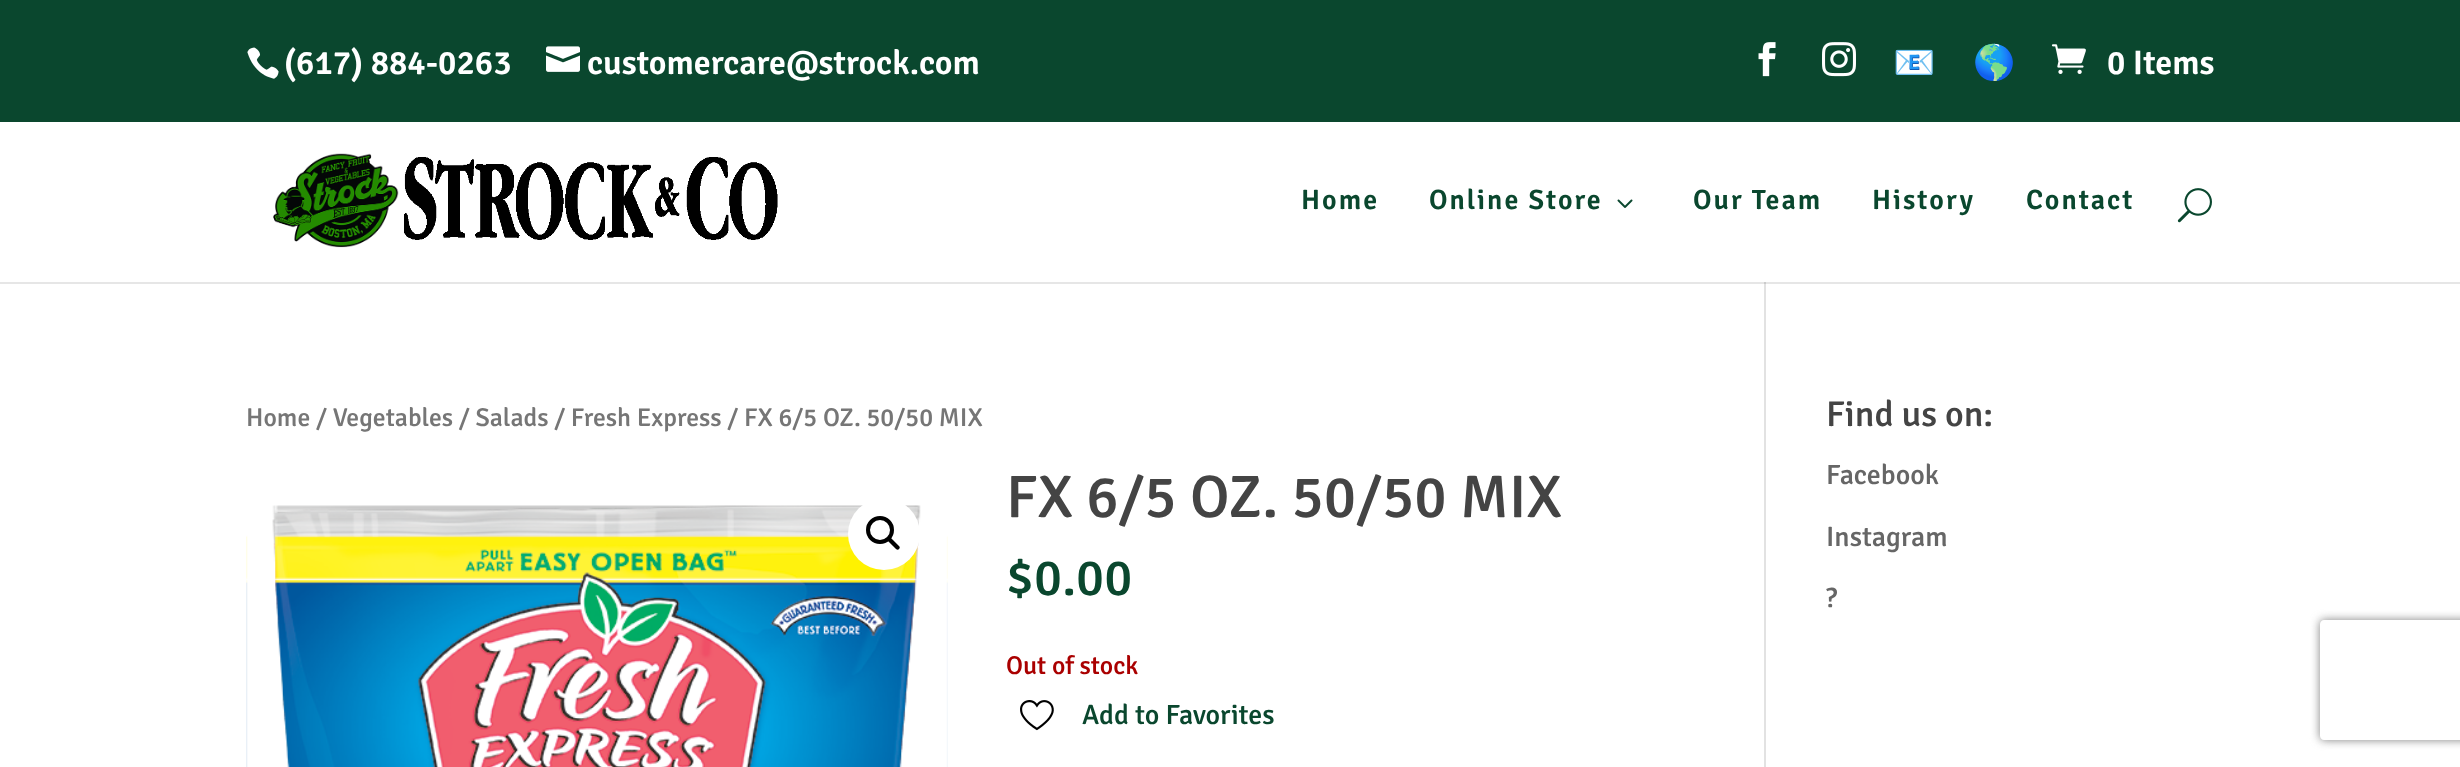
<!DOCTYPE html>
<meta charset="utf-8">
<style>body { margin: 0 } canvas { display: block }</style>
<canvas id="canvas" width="2460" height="767"></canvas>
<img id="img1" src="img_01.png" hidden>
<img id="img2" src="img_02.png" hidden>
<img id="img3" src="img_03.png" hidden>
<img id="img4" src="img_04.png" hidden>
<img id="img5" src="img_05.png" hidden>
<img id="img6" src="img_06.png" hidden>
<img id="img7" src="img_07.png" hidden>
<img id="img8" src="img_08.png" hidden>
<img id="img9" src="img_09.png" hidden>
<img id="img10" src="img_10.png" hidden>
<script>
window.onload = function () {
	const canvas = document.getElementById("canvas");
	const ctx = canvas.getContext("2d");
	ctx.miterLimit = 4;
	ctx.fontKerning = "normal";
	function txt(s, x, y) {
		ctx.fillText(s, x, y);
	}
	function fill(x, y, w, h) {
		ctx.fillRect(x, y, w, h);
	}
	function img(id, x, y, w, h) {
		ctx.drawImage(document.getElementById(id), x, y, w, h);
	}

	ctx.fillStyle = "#FFFFFF";
	fill(0, 0, 2460, 767);
	ctx.fillStyle = "#E6E6E6";
	fill(0, 282, 2460, 2);
	ctx.fillStyle = "#0A472E";
	fill(0, 0, 2460, 122);
	img("img1", 247, 47, 32, 32);
	img("img2", 546, 46, 34, 26);
	img("img3", 1758, 42, 18, 35);
	img("img4", 1822, 42, 34, 35);
	img("img5", 2051, 44, 35, 30);
	ctx.fillStyle = "#E2E2E2";
	fill(1764, 280, 2, 487);
	ctx.fillStyle = "#FFFFFF";
	fill(1764, 280, 2, 2);
	img("img6", 273, 153, 505, 95);
	img("img7", 1617, 199, 16, 9);
	img("img8", 2177, 188, 35, 35);
	ctx.fillStyle = "#CBCBCB";
	fill(1764, 282, 2, 2);
	img("img9", 246, 505, 702, 262);
	ctx.fillStyle = "#FFFFFF";
	ctx.beginPath();
	ctx.arc(884, 534, 36, 0, Math.PI * 2);
	ctx.fill();
	ctx.beginPath();
	ctx.arc(880, 530, 12, 0, Math.PI * 2);
	ctx.strokeStyle = "#000000";
	ctx.lineWidth = 4;
	ctx.stroke();
	ctx.fillStyle = "#000000";
	ctx.beginPath();
	ctx.moveTo(887.5, 537.5);
	ctx.bezierCurveTo(888.5, 537, 890, 537, 890.5, 537.5);
	ctx.lineTo(899, 546);
	ctx.bezierCurveTo(900, 547, 900, 548, 899, 549);
	ctx.bezierCurveTo(898.5, 550, 897, 550, 896, 549);
	ctx.lineTo(887.5, 540.5);
	ctx.bezierCurveTo(887, 539.5, 887, 538.5, 887.5, 537.5);
	ctx.closePath();
	ctx.fill();
	img("img10", 1020, 700, 34, 31);
	ctx.save();
	ctx.beginPath();
	ctx.moveTo(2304, 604);
	ctx.lineTo(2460, 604);
	ctx.lineTo(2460, 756);
	ctx.lineTo(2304, 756);
	ctx.closePath();
	ctx.moveTo(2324, 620);
	ctx.lineTo(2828, 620);
	ctx.bezierCurveTo(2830, 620, 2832, 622, 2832, 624);
	ctx.lineTo(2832, 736);
	ctx.bezierCurveTo(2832, 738, 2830, 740, 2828, 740);
	ctx.lineTo(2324, 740);
	ctx.bezierCurveTo(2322, 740, 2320, 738, 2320, 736);
	ctx.lineTo(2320, 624);
	ctx.bezierCurveTo(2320, 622, 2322, 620, 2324, 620);
	ctx.closePath();
	ctx.clip("evenodd");
	ctx.fillStyle = "#808080";
	ctx.filter = "blur(5px)";
	ctx.beginPath();
	ctx.roundRect(2320, 620, 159, 120, 4);
	ctx.fill();
	ctx.filter = "none";
	ctx.restore();
	ctx.font = "600 34px Signika";
	ctx.fillStyle = "#FFFFFF";
	txt("(617) 884-0263", 284, 74);
	txt("customercare@strock.com", 587, 74);
	ctx.font = "bold 34px Noto Color Emoji";
	txt("📧", 1893, 74);
	txt("🌎", 1973, 74);
	ctx.font = "600 34px Signika";
	txt("0 Items", 2107, 74);
	ctx.letterSpacing = "2px";
	ctx.font = "600 28px Signika";
	ctx.fillStyle = "#0A472E";
	txt("Home", 1301, 209);
	txt("Online Store", 1429, 209);
	txt("Our Team", 1693, 209);
	txt("History", 1872, 209);
	txt("Contact", 2026, 209);
	ctx.letterSpacing = "0px";
	ctx.font = "500 25.75px Signika";
	ctx.fillStyle = "#767676";
	txt("Home / Vegetables / Salads / Fresh Express / FX 6/5 OZ. 50/50 MIX", 246, 426);
	ctx.font = "500 60px Signika";
	ctx.fillStyle = "#444444";
	txt("FX 6/5 OZ. 50/50 MIX", 1006, 517);
	ctx.font = "500 52px Signika";
	ctx.fillStyle = "#0A472E";
	txt("$0.00", 1006, 595);
	ctx.font = "500 25.75px Signika";
	ctx.fillStyle = "#AA0000";
	txt("Out of stock", 1006, 674);
	ctx.font = "500 28px Signika";
	ctx.fillStyle = "#0A472E";
	txt("Add to Favorites", 1082, 724);
	ctx.font = "500 36px Signika";
	ctx.fillStyle = "#444444";
	txt("Find us on:", 1826, 426);
	ctx.font = "500 28px Signika";
	ctx.fillStyle = "#666666";
	txt("Facebook", 1826, 484);
	txt("Instagram", 1826, 546);
	txt("?", 1826, 607);
};
</script>
